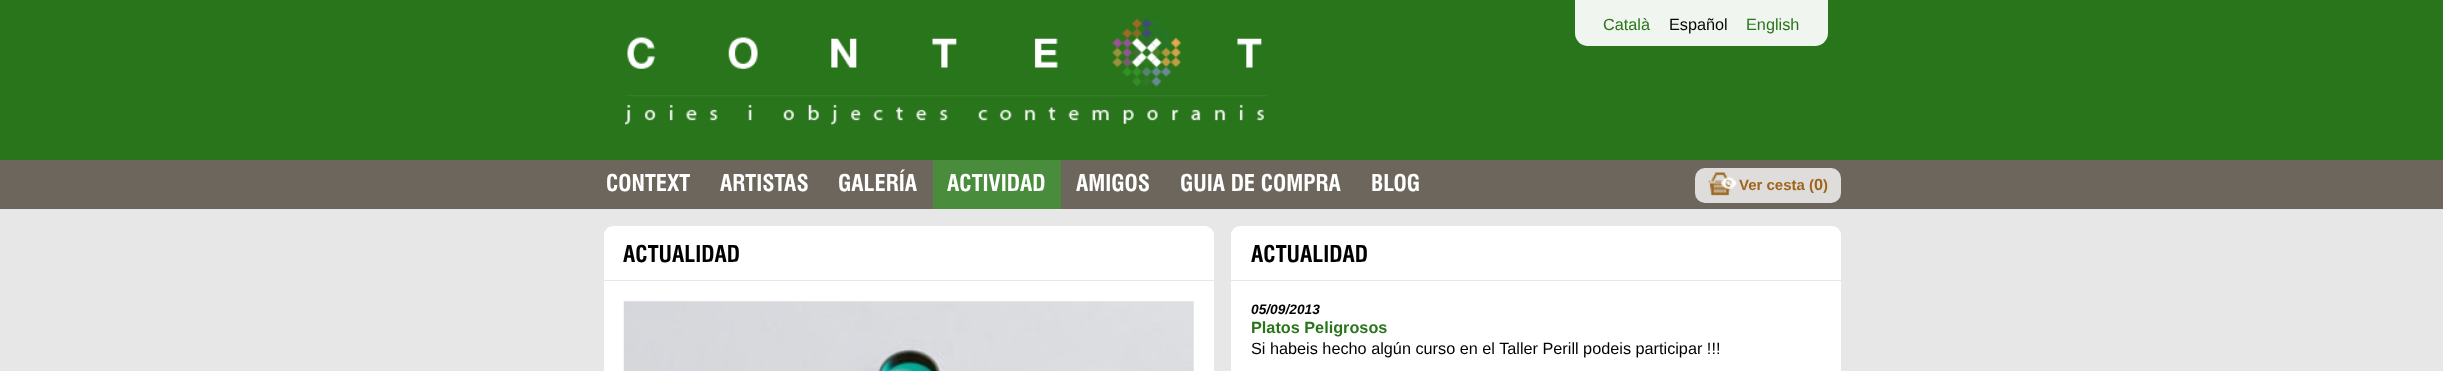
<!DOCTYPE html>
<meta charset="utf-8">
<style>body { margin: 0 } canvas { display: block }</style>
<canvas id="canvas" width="2443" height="371"></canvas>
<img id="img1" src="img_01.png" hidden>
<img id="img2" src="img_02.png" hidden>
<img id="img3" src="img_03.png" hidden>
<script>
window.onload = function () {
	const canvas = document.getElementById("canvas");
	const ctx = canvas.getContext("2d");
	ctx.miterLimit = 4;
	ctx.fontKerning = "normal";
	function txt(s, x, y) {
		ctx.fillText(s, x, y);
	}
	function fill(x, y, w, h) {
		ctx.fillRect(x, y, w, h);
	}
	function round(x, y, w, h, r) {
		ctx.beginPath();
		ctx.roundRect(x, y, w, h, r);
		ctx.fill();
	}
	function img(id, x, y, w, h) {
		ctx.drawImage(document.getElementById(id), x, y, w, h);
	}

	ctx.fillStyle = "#E7E7E7";
	fill(0, 0, 2443, 371);
	ctx.fillStyle = "#29751B";
	fill(0, 0, 2443, 160);
	img("img1", 625, 18, 643, 107);
	ctx.fillStyle = "#F0F5EF";
	ctx.beginPath();
	ctx.roundRect(1575, 0, 253, 46, [0, 0, 13, 13]);
	ctx.fill();
	ctx.fillStyle = "#6D665C";
	fill(0, 160, 2443, 49);
	ctx.fillStyle = "#498C3C";
	fill(933, 160, 128, 49);
	ctx.fillStyle = "#DFDDDB";
	round(1695, 168, 146, 35, 10);
	img("img2", 1708, 172, 29, 24);
	ctx.fillStyle = "#FFFFFF";
	ctx.beginPath();
	ctx.roundRect(604, 226, 610, 54, [9, 9, 0, 0]);
	ctx.fill();
	fill(604, 281, 610, 90);
	img("img3", 623, 301, 571, 70);
	ctx.beginPath();
	ctx.roundRect(1231, 226, 610, 54, [9, 9, 0, 0]);
	ctx.fill();
	fill(1231, 281, 610, 90);
	ctx.font = "16.25px Liberation Sans";
	ctx.fillStyle = "#29751B";
	txt("Català", 1603, 30);
	ctx.fillStyle = "#030802";
	txt("Español", 1669, 30);
	ctx.fillStyle = "#29751B";
	txt("English", 1746, 30);
	ctx.font = "bold 22.5px 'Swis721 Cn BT'";
	ctx.fillStyle = "#FFFFFF";
	txt("CONTEXT", 606, 191);
	txt("ARTISTAS", 720, 191);
	txt("GALERÍA", 838, 191);
	txt("ACTIVIDAD", 947, 191);
	txt("AMIGOS", 1076, 191);
	txt("GUIA DE COMPRA", 1180, 191);
	txt("BLOG", 1371, 191);
	ctx.font = "bold 15px Liberation Sans";
	ctx.fillStyle = "#9F651B";
	txt("Ver cesta (", 1739, 190);
	ctx.font = "bold 16.25px Liberation Sans";
	txt("0", 1814, 190);
	ctx.font = "bold 15px Liberation Sans";
	txt(")", 1823, 190);
	ctx.font = "bold 22.5px 'Swis721 Cn BT'";
	ctx.fillStyle = "#000000";
	txt("ACTUALIDAD", 623, 262);
	txt("ACTUALIDAD", 1251, 262);
	ctx.font = "italic bold 13.75px Liberation Sans";
	txt("05/09/2013", 1251, 314);
	ctx.font = "bold 16.25px Liberation Sans";
	ctx.fillStyle = "#29751B";
	txt("Platos Peligrosos", 1251, 333);
	ctx.font = "16.25px Liberation Sans";
	ctx.fillStyle = "#000000";
	txt("Si habeis hecho algún curso en el Taller Perill podeis participar !!!", 1251, 354);
};
</script>
